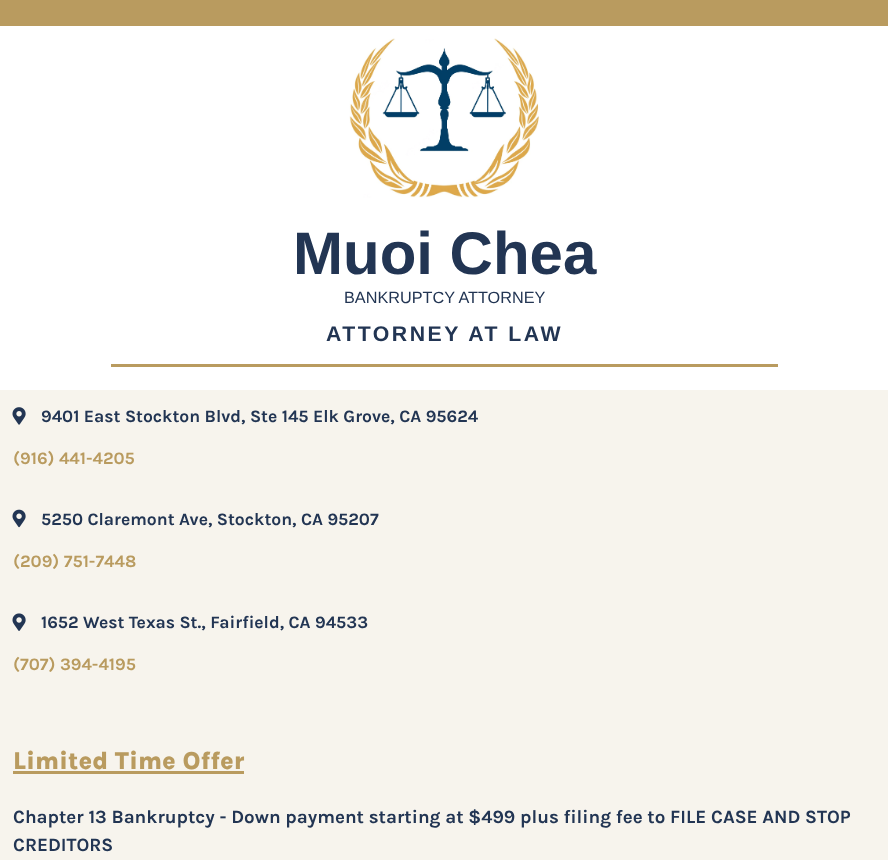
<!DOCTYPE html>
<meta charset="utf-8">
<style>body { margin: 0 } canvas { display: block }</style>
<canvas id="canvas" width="888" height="860"></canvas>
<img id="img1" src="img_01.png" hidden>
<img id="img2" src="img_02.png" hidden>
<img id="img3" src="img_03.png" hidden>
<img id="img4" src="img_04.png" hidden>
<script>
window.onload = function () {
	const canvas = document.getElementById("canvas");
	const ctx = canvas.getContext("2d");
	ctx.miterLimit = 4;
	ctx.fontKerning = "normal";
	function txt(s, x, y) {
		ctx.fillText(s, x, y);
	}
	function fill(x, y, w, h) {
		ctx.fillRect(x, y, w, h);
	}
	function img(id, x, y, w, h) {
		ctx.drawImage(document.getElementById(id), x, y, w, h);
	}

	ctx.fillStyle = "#FFFFFF";
	fill(0, 0, 888, 860);
	ctx.fillStyle = "#B99B5F";
	fill(0, 0, 888, 26);
	img("img1", 349, 38, 190, 160);
	fill(111, 364, 667, 3);
	ctx.fillStyle = "#F7F4ED";
	fill(0, 390, 888, 470);
	img("img2", 12, 407, 14, 18);
	img("img3", 12, 509, 14, 19);
	img("img4", 12, 613, 14, 18);
	ctx.fillStyle = "#B99B5F";
	fill(13, 771, 231, 3);
	ctx.font = "bold 60px Liberation Sans";
	ctx.fillStyle = "#223553";
	txt("Muoi Chea", 293, 274);
	ctx.font = "16.25px Liberation Sans";
	txt("BANKRUPTCY ATTORNEY", 344, 303);
	ctx.letterSpacing = "2.5px";
	ctx.font = "bold 21.25px Liberation Sans";
	txt("ATTORNEY AT LAW", 326, 341);
	ctx.letterSpacing = "0px";
	ctx.font = "bold 17.5px Karla";
	txt("9401 East Stockton Blvd, Ste 145 Elk Grove, CA 95624", 41, 422);
	ctx.fillStyle = "#B99B5F";
	txt("(916) 441-4205", 13, 464);
	ctx.fillStyle = "#223553";
	txt("5250 Claremont Ave, Stockton, CA 95207", 41, 525);
	ctx.fillStyle = "#B99B5F";
	txt("(209) 751-7448", 13, 567);
	ctx.fillStyle = "#223553";
	txt("1652 West Texas St., Fairfield, CA 94533", 41, 628);
	ctx.fillStyle = "#B99B5F";
	txt("(707) 394-4195", 13, 670);
	ctx.font = "800 25px Karla";
	txt("Limited Time Offer", 13, 769);
	ctx.font = "bold 18.75px Karla";
	ctx.fillStyle = "#223553";
	txt("Chapter 13 Bankruptcy - Down payment starting at $499 plus filing fee to FILE CASE AND STOP", 13, 823);
	txt("CREDITORS", 13, 851);
};
</script>
